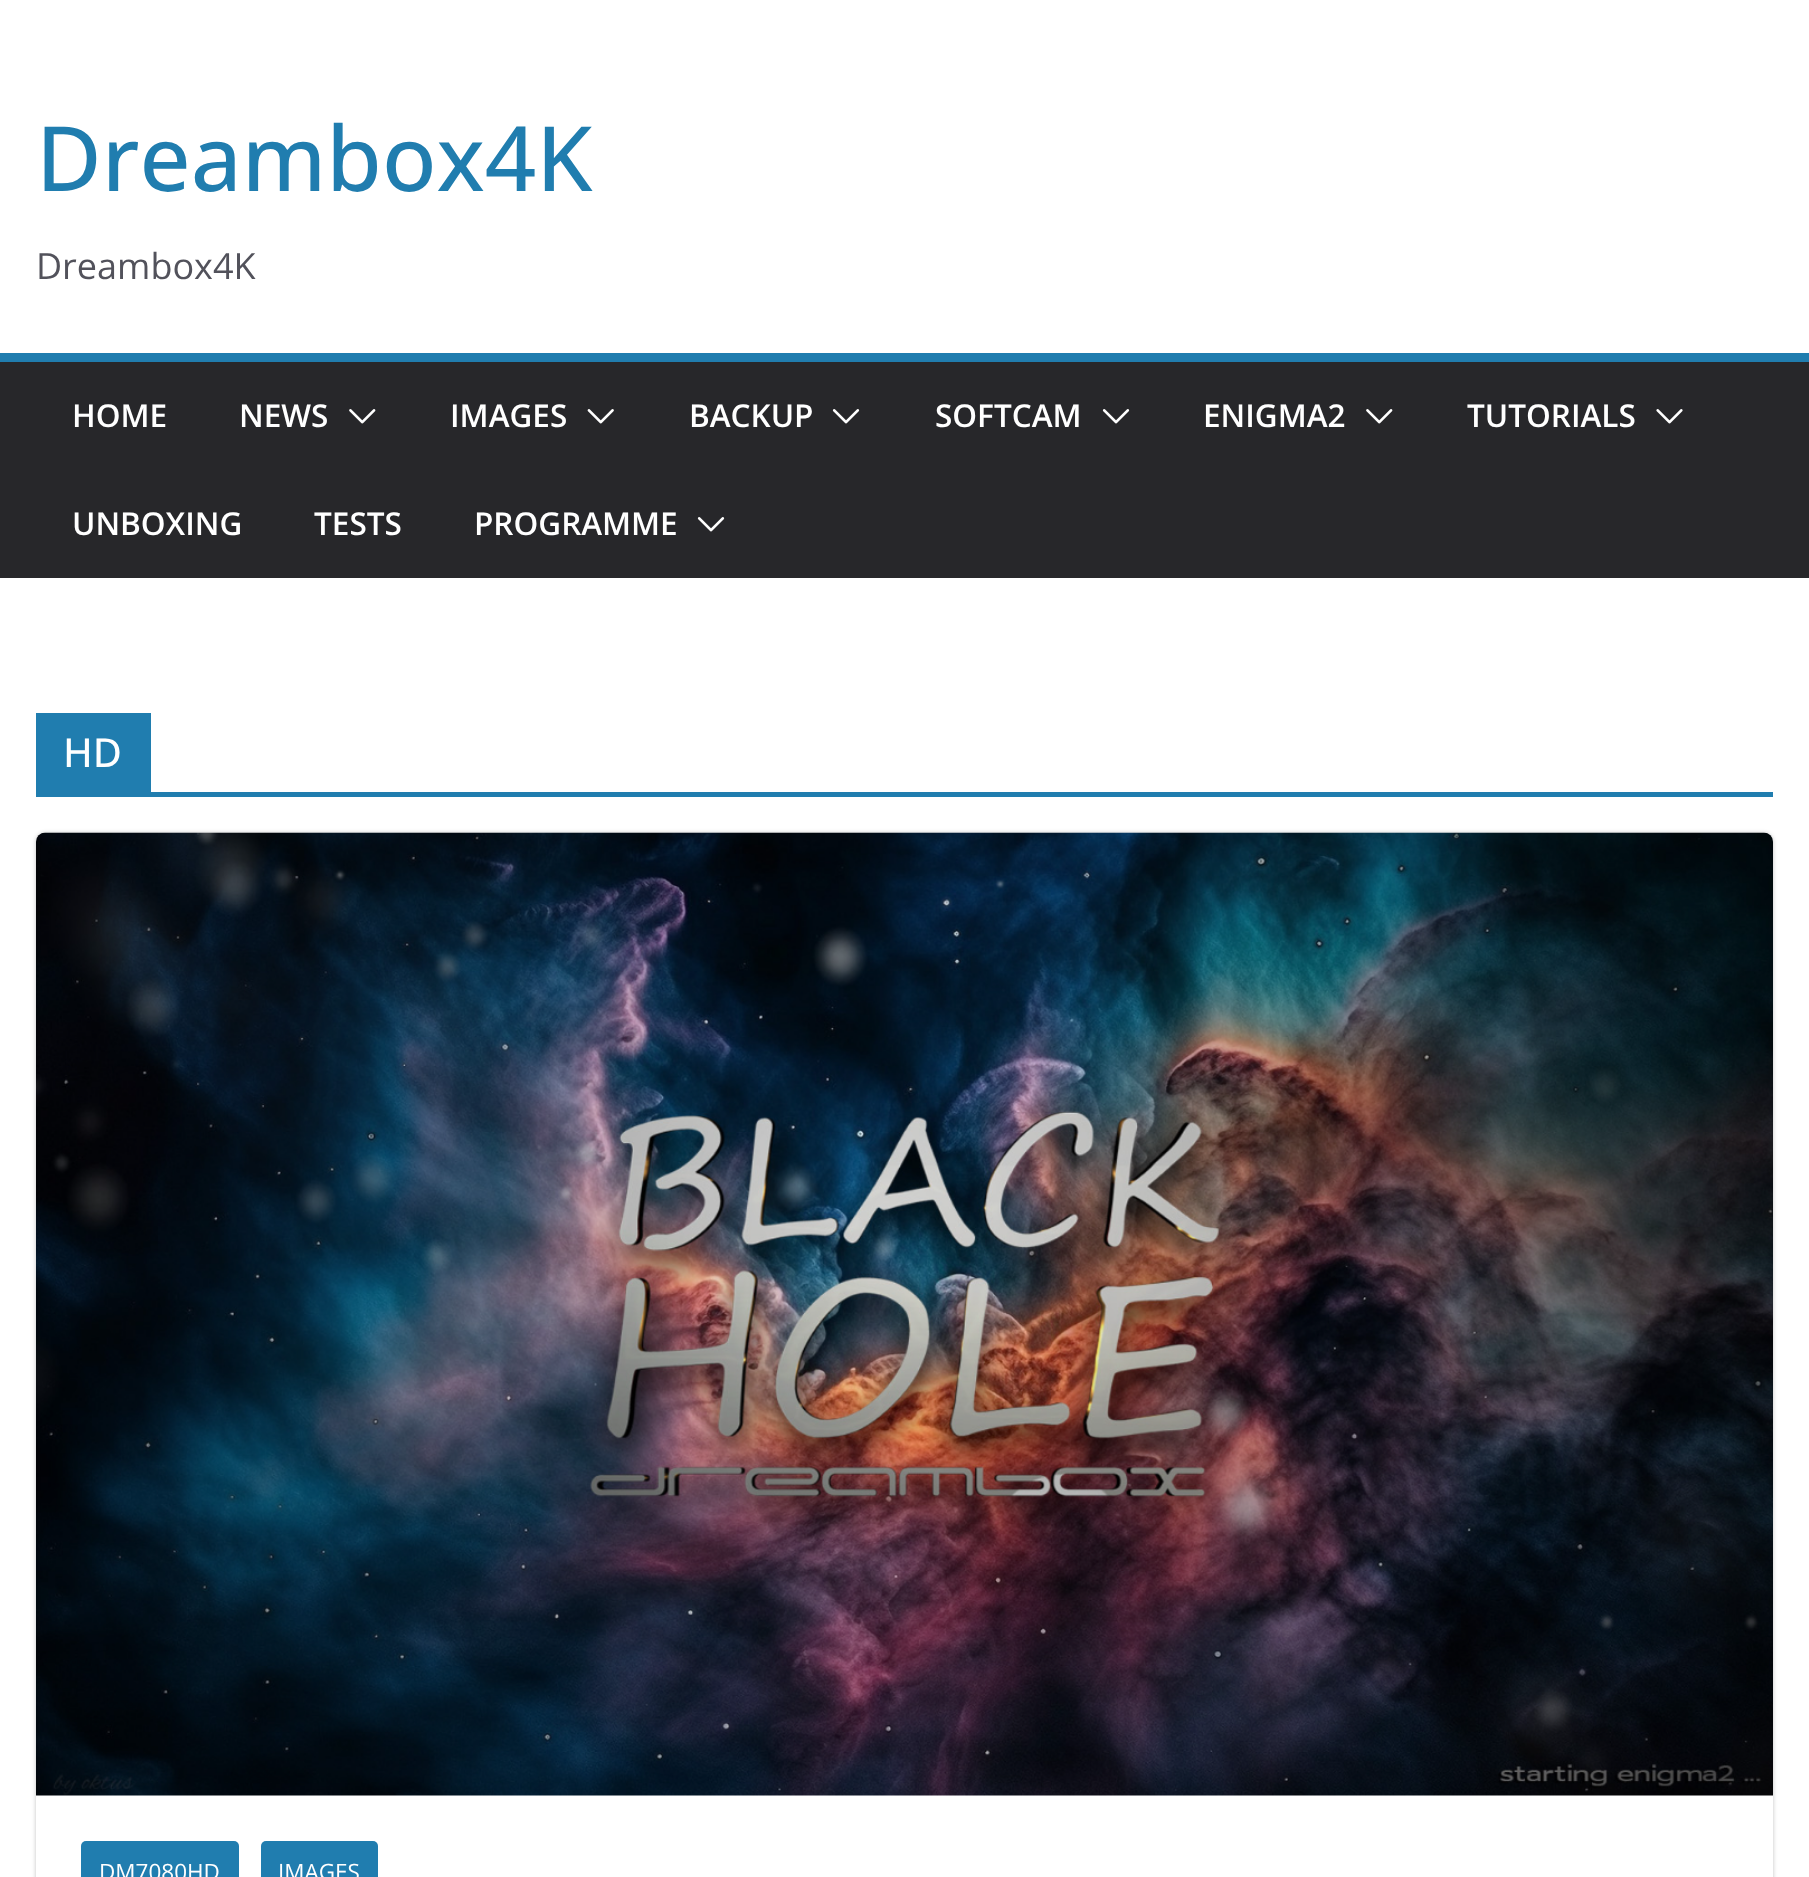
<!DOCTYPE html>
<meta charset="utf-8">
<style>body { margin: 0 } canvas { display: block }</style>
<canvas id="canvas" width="1809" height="1877"></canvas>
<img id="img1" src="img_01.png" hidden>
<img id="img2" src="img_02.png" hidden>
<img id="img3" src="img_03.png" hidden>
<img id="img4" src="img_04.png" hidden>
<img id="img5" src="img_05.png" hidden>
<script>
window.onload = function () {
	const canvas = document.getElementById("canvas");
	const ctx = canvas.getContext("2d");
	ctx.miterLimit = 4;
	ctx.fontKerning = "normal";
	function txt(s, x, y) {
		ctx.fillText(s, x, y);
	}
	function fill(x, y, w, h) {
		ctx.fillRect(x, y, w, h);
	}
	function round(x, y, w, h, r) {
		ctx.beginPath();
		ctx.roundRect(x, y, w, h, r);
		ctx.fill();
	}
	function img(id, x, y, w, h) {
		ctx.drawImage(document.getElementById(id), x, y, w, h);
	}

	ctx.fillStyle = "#FFFFFF";
	fill(0, 0, 1809, 1877);
	ctx.fillStyle = "#27272A";
	fill(0, 362, 1809, 216);
	ctx.fillStyle = "#207DAF";
	fill(0, 353, 1809, 9);
	img("img1", 349, 409, 27, 15);
	img("img2", 587, 409, 27, 15);
	img("img3", 832, 409, 28, 15);
	img("img3", 1102, 409, 28, 15);
	img("img1", 1366, 409, 27, 15);
	img("img4", 1656, 409, 27, 15);
	img("img3", 697, 517, 28, 15);
	fill(36, 792, 1737, 5);
	fill(36, 713, 115, 79);
	ctx.save();
	ctx.beginPath();
	ctx.moveTo(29, 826);
	ctx.lineTo(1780, 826);
	ctx.lineTo(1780, 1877);
	ctx.lineTo(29, 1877);
	ctx.closePath();
	ctx.moveTo(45, 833);
	ctx.lineTo(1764, 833);
	ctx.bezierCurveTo(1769, 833, 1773, 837, 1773, 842);
	ctx.lineTo(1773, 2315);
	ctx.bezierCurveTo(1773, 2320, 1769, 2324, 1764, 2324);
	ctx.lineTo(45, 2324);
	ctx.bezierCurveTo(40, 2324, 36, 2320, 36, 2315);
	ctx.lineTo(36, 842);
	ctx.bezierCurveTo(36, 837, 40, 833, 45, 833);
	ctx.closePath();
	ctx.clip("evenodd");
	ctx.fillStyle = "rgba(0, 0, 0, 0.24)";
	ctx.filter = "blur(2px)";
	ctx.beginPath();
	ctx.roundRect(36, 833, 1737, 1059, 9);
	ctx.fill();
	ctx.filter = "none";
	ctx.restore();
	img("img5", 36, 832, 1737, 964);
	round(81, 1841, 158, 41, 5);
	round(261, 1841, 117, 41, 5);
	ctx.font = "500 90px Open Sans";
	txt("Dreambox4K", 36, 191);
	ctx.font = "36px Open Sans";
	ctx.fillStyle = "#52525B";
	txt("Dreambox4K", 36, 279);
	ctx.font = "600 31.5px Open Sans";
	ctx.fillStyle = "#FFFFFF";
	txt("HOME", 72, 427);
	txt("NEWS", 239, 427);
	txt("IMAGES", 450, 427);
	txt("BACKUP", 689, 427);
	txt("SOFTCAM", 935, 427);
	txt("ENIGMA2", 1203, 427);
	txt("TUTORIALS", 1467, 427);
	txt("UNBOXING", 72, 535);
	txt("TESTS", 314, 535);
	txt("PROGRAMME", 474, 535);
	ctx.font = "500 40px Open Sans";
	txt("HD", 63, 767);
	ctx.font = "22.5px Open Sans";
	txt("DM7080HD", 99, 1880);
	txt("IMAGES", 278, 1880);
};
</script>
